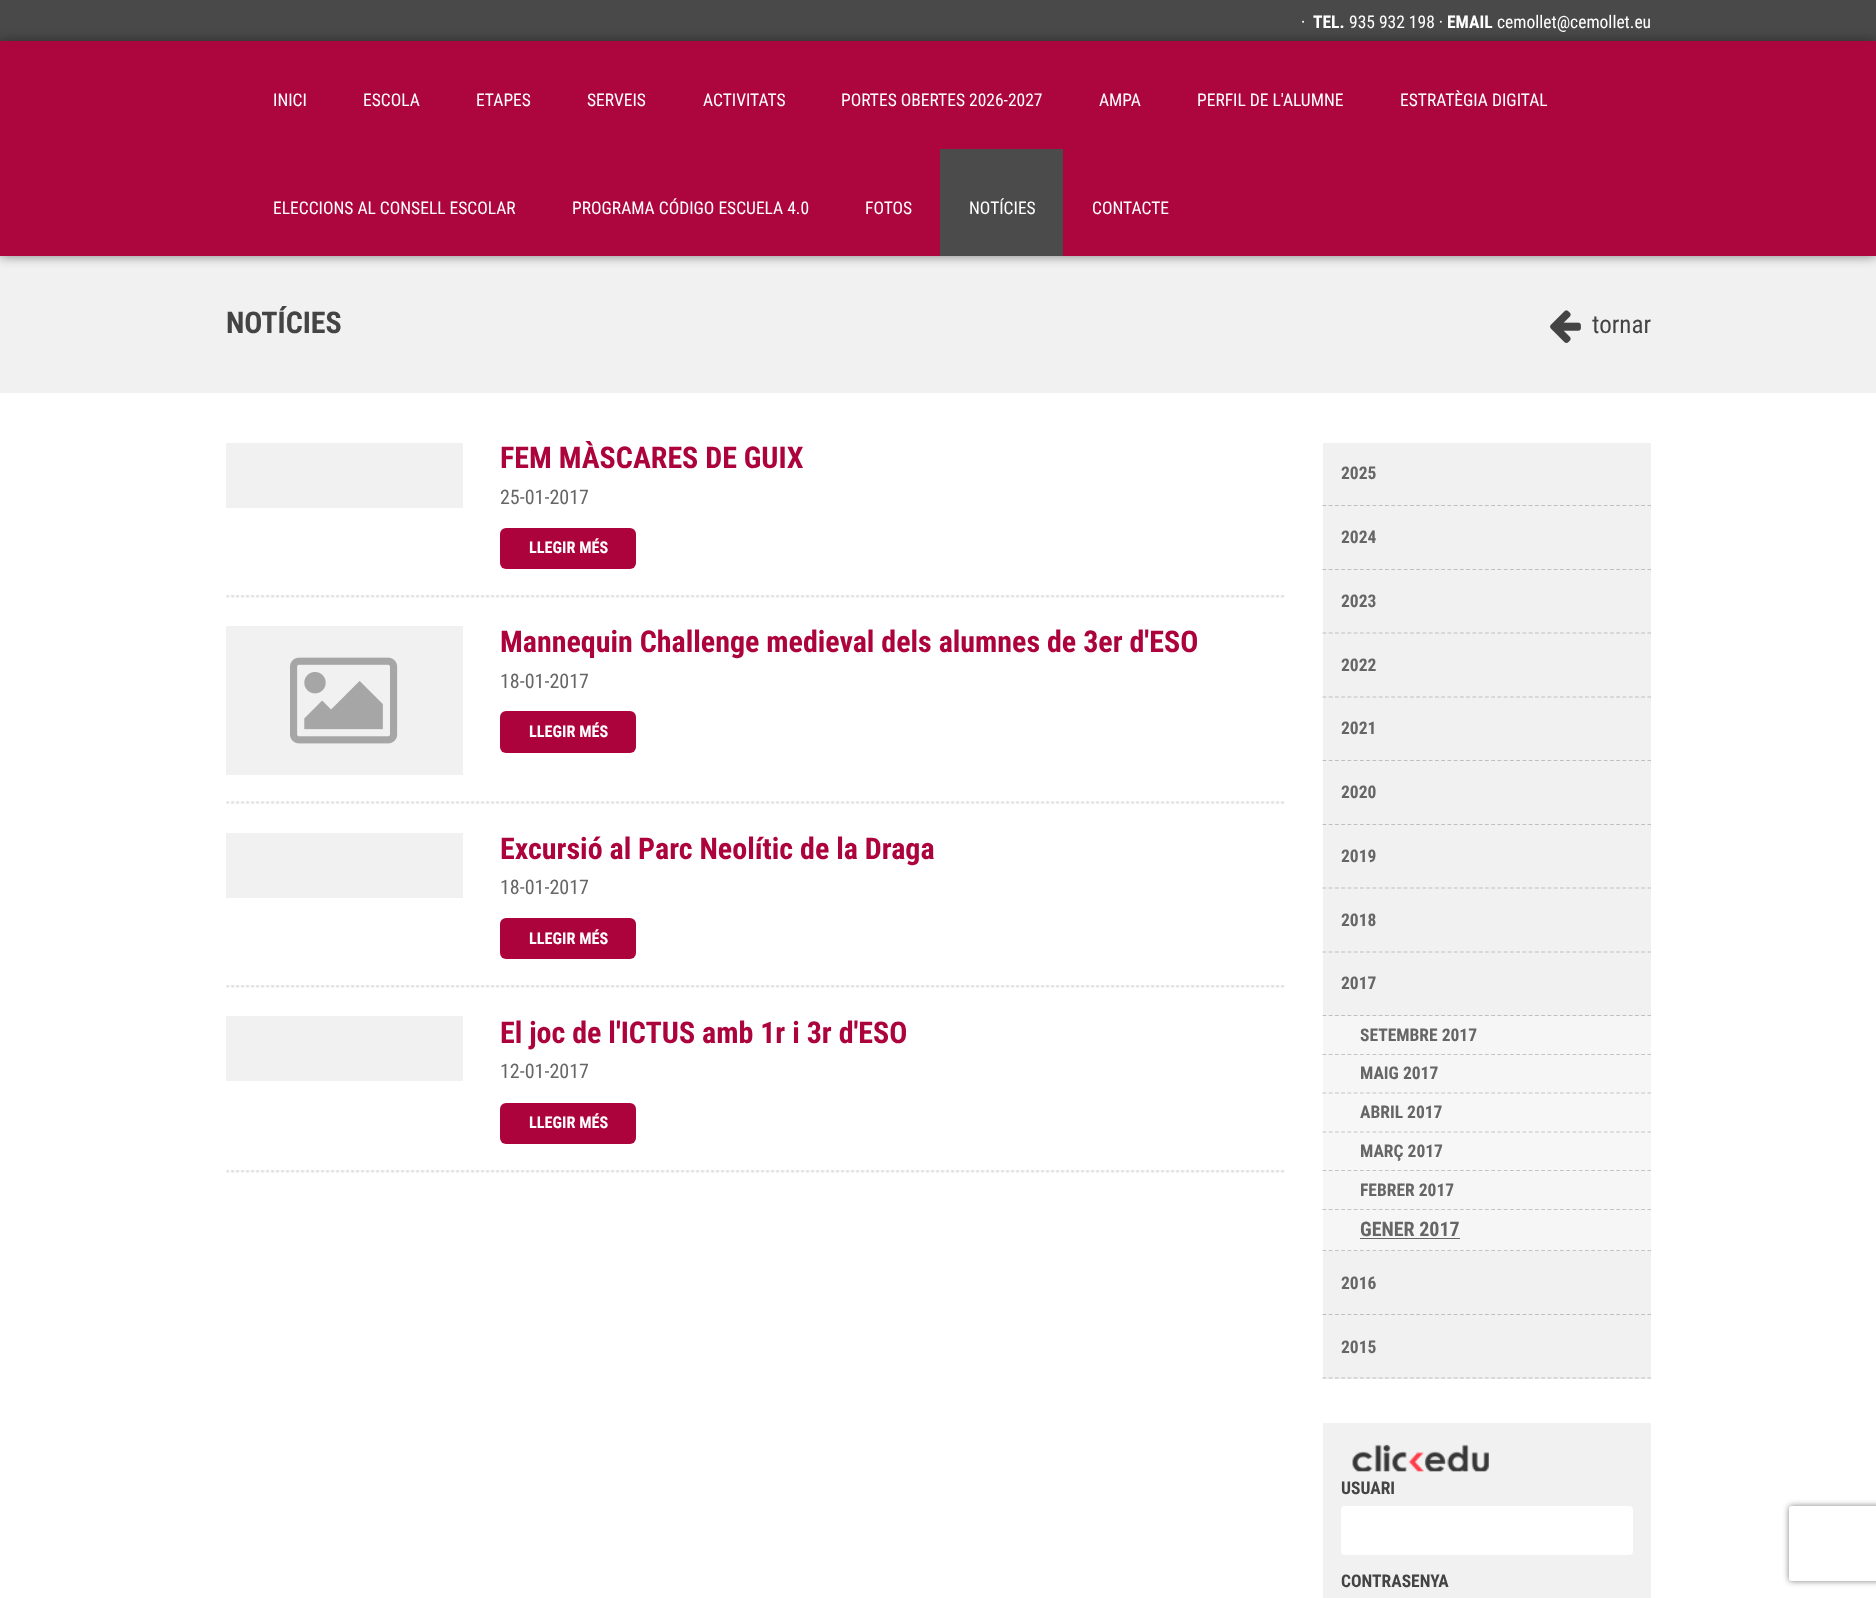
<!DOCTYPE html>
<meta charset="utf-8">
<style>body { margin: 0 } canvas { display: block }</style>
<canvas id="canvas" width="1876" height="1598"></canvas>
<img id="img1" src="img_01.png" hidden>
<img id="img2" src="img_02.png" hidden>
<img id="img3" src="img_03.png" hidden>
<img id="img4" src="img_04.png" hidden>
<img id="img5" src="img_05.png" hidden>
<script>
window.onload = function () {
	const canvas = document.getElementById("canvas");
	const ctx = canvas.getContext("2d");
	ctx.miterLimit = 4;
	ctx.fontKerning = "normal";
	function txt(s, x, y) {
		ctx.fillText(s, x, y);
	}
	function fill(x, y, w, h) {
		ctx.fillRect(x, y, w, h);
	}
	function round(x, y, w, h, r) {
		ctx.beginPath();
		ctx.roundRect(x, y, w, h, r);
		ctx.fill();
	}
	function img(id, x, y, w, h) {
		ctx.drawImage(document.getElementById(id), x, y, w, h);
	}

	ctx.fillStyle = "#FFFFFF";
	fill(0, 0, 1876, 1598);
	ctx.fillStyle = "#494949";
	fill(0, 0, 1876, 41);
	ctx.fillStyle = "#F1F1F1";
	fill(0, 256, 1876, 137);
	ctx.fillStyle = "rgba(19, 18, 21, 0.52)";
	ctx.filter = "blur(6px)";
	ctx.beginPath();
	ctx.rect(0, 41, 1876, 215);
	ctx.fill();
	ctx.filter = "none";
	ctx.fillStyle = "#AD063E";
	fill(0, 41, 1876, 215);
	ctx.fillStyle = "#4B4B4B";
	fill(940, 149, 123, 107);
	img("img1", 1550, 310, 31, 33);
	ctx.fillStyle = "#F1F1F1";
	fill(226, 443, 237, 65);
	ctx.fillStyle = "#AC033C";
	round(500, 528, 136, 41, 6);
	img("img2", 226, 595, 1059, 3);
	ctx.fillStyle = "#F1F1F1";
	fill(226, 626, 237, 149);
	img("img3", 290, 657, 108, 87);
	ctx.fillStyle = "#AC033C";
	round(500, 711, 136, 42, 6);
	img("img4", 226, 801, 1059, 3);
	ctx.fillStyle = "#F1F1F1";
	fill(226, 833, 237, 65);
	ctx.fillStyle = "#AC033C";
	round(500, 918, 136, 41, 6);
	img("img2", 226, 985, 1059, 3);
	ctx.fillStyle = "#F1F1F1";
	fill(226, 1016, 237, 65);
	ctx.fillStyle = "#AC033C";
	round(500, 1103, 136, 41, 6);
	img("img2", 226, 1170, 1059, 3);
	ctx.fillStyle = "#F1F1F1";
	fill(1323, 443, 328, 936);
	ctx.beginPath();
	ctx.moveTo(1322.5, 505.5);
	ctx.lineTo(1651, 505.5);
	ctx.strokeStyle = "rgba(77, 77, 77, 0.3)";
	ctx.lineWidth = 1.2;
	ctx.setLineDash([3.75, 2.5]);
	ctx.stroke();
	ctx.beginPath();
	ctx.moveTo(1322.5, 569.5);
	ctx.lineTo(1651, 569.5);
	ctx.stroke();
	ctx.beginPath();
	ctx.moveTo(1322.5, 633);
	ctx.lineTo(1651, 633);
	ctx.strokeStyle = "#C0C0C0";
	ctx.stroke();
	ctx.beginPath();
	ctx.moveTo(1322.5, 697);
	ctx.lineTo(1651, 697);
	ctx.stroke();
	ctx.beginPath();
	ctx.moveTo(1322.5, 760.5);
	ctx.lineTo(1651, 760.5);
	ctx.strokeStyle = "rgba(77, 77, 77, 0.3)";
	ctx.stroke();
	ctx.beginPath();
	ctx.moveTo(1322.5, 824.5);
	ctx.lineTo(1651, 824.5);
	ctx.stroke();
	ctx.beginPath();
	ctx.moveTo(1322.5, 888);
	ctx.lineTo(1651, 888);
	ctx.strokeStyle = "#C0C0C0";
	ctx.stroke();
	ctx.beginPath();
	ctx.moveTo(1322.5, 952);
	ctx.lineTo(1651, 952);
	ctx.stroke();
	ctx.beginPath();
	ctx.moveTo(1322.5, 1015.5);
	ctx.lineTo(1651, 1015.5);
	ctx.strokeStyle = "rgba(77, 77, 77, 0.3)";
	ctx.stroke();
	ctx.fillStyle = "rgba(255, 255, 255, 0.4)";
	fill(1323, 1016, 328, 39);
	ctx.beginPath();
	ctx.moveTo(1322.5, 1054.5);
	ctx.lineTo(1651, 1054.5);
	ctx.stroke();
	fill(1323, 1055, 328, 39);
	ctx.beginPath();
	ctx.moveTo(1322.5, 1093);
	ctx.lineTo(1651, 1093);
	ctx.strokeStyle = "#C4C4C4";
	ctx.stroke();
	ctx.fillStyle = "#F7F7F7";
	fill(1323, 1094, 328, 77);
	ctx.beginPath();
	ctx.moveTo(1322.5, 1132);
	ctx.lineTo(1651, 1132);
	ctx.stroke();
	ctx.beginPath();
	ctx.moveTo(1322.5, 1170.5);
	ctx.lineTo(1651, 1170.5);
	ctx.strokeStyle = "rgba(77, 77, 77, 0.3)";
	ctx.stroke();
	ctx.fillStyle = "rgba(255, 255, 255, 0.4)";
	fill(1323, 1171, 328, 39);
	ctx.beginPath();
	ctx.moveTo(1322.5, 1209.5);
	ctx.lineTo(1651, 1209.5);
	ctx.stroke();
	fill(1323, 1210, 328, 41);
	ctx.beginPath();
	ctx.moveTo(1322.5, 1250.5);
	ctx.lineTo(1651, 1250.5);
	ctx.stroke();
	ctx.fillStyle = "#666666";
	fill(1360, 1238, 100, 1);
	ctx.beginPath();
	ctx.moveTo(1322.5, 1314.5);
	ctx.lineTo(1651, 1314.5);
	ctx.stroke();
	ctx.beginPath();
	ctx.moveTo(1322.5, 1378);
	ctx.lineTo(1651, 1378);
	ctx.strokeStyle = "#C0C0C0";
	ctx.stroke();
	ctx.fillStyle = "#F1F1F1";
	fill(1323, 1423, 328, 175);
	img("img5", 1352, 1444, 137, 28);
	ctx.fillStyle = "#FFFFFF";
	round(1341, 1506, 292, 49, 4);
	ctx.save();
	ctx.beginPath();
	ctx.moveTo(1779, 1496);
	ctx.lineTo(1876, 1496);
	ctx.lineTo(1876, 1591);
	ctx.lineTo(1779, 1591);
	ctx.closePath();
	ctx.moveTo(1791.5, 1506);
	ctx.lineTo(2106.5, 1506);
	ctx.bezierCurveTo(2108, 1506, 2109, 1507, 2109, 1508.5);
	ctx.lineTo(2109, 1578.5);
	ctx.bezierCurveTo(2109, 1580, 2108, 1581, 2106.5, 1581);
	ctx.lineTo(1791.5, 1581);
	ctx.bezierCurveTo(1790, 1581, 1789, 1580, 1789, 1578.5);
	ctx.lineTo(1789, 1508.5);
	ctx.bezierCurveTo(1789, 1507, 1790, 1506, 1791.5, 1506);
	ctx.closePath();
	ctx.clip("evenodd");
	ctx.fillStyle = "#808080";
	ctx.filter = "blur(3px)";
	ctx.beginPath();
	ctx.roundRect(1789, 1506, 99, 75, 2.5);
	ctx.fill();
	ctx.filter = "none";
	ctx.restore();
	ctx.font = "17.5px Roboto Condensed";
	txt("·", 1301, 28);
	ctx.font = "bold 17.5px Roboto Condensed";
	txt("TEL.", 1313, 28);
	ctx.font = "17.5px Roboto Condensed";
	txt("935 932 198 ·", 1349, 28);
	ctx.font = "bold 17.5px Roboto Condensed";
	txt("EMAIL", 1447, 28);
	ctx.font = "17.5px Roboto Condensed";
	txt("cemollet@cemollet.eu", 1497, 28);
	txt("INICI", 273, 106);
	txt("ESCOLA", 363, 106);
	txt("ETAPES", 476, 106);
	txt("SERVEIS", 587, 106);
	txt("ACTIVITATS", 703, 106);
	txt("PORTES OBERTES 2026-2027", 841, 106);
	txt("AMPA", 1099, 106);
	txt("PERFIL DE L'ALUMNE", 1197, 106);
	txt("ESTRATÈGIA DIGITAL", 1400, 106);
	txt("ELECCIONS AL CONSELL ESCOLAR", 273, 214);
	txt("PROGRAMA CÓDIGO ESCUELA 4.0", 572, 214);
	txt("FOTOS", 865, 214);
	txt("NOTÍCIES", 969, 214);
	txt("CONTACTE", 1092, 214);
	ctx.font = "bold 30px Roboto Condensed";
	ctx.fillStyle = "#444444";
	txt("NOTÍCIES", 226, 333);
	ctx.font = "25px Roboto Condensed";
	txt("tornar", 1592, 333);
	ctx.font = "bold 30px Roboto Condensed";
	ctx.fillStyle = "#AC033C";
	txt("FEM MÀSCARES DE GUIX", 500, 468);
	ctx.font = "20px Roboto Condensed";
	ctx.fillStyle = "#666666";
	txt("25-01-2017", 500, 504);
	ctx.font = "bold 16.25px Roboto Condensed";
	ctx.fillStyle = "#FFFFFF";
	txt("LLEGIR MÉS", 529, 553);
	ctx.font = "bold 30px Roboto Condensed";
	ctx.fillStyle = "#AC033C";
	txt("Mannequin Challenge medieval dels alumnes de 3er d'ESO", 500, 652);
	ctx.font = "20px Roboto Condensed";
	ctx.fillStyle = "#666666";
	txt("18-01-2017", 500, 688);
	ctx.font = "bold 16.25px Roboto Condensed";
	ctx.fillStyle = "#FFFFFF";
	txt("LLEGIR MÉS", 529, 737);
	ctx.font = "bold 30px Roboto Condensed";
	ctx.fillStyle = "#AC033C";
	txt("Excursió al Parc Neolític de la Draga", 500, 859);
	ctx.font = "20px Roboto Condensed";
	ctx.fillStyle = "#666666";
	txt("18-01-2017", 500, 894);
	ctx.font = "bold 16.25px Roboto Condensed";
	ctx.fillStyle = "#FFFFFF";
	txt("LLEGIR MÉS", 529, 944);
	ctx.font = "bold 30px Roboto Condensed";
	ctx.fillStyle = "#AC033C";
	txt("El joc de l'ICTUS amb 1r i 3r d'ESO", 500, 1043);
	ctx.font = "20px Roboto Condensed";
	ctx.fillStyle = "#666666";
	txt("12-01-2017", 500, 1078);
	ctx.font = "bold 16.25px Roboto Condensed";
	ctx.fillStyle = "#FFFFFF";
	txt("LLEGIR MÉS", 529, 1128);
	ctx.font = "bold 17.5px Roboto Condensed";
	ctx.fillStyle = "#666666";
	txt("2025", 1341, 479);
	txt("2024", 1341, 543);
	txt("2023", 1341, 607);
	txt("2022", 1341, 671);
	txt("2021", 1341, 734);
	txt("2020", 1341, 798);
	txt("2019", 1341, 862);
	txt("2018", 1341, 926);
	txt("2017", 1341, 989);
	txt("SETEMBRE 2017", 1360, 1041);
	txt("MAIG 2017", 1360, 1079);
	txt("ABRIL 2017", 1360, 1118);
	txt("MARÇ 2017", 1360, 1157);
	txt("FEBRER 2017", 1360, 1196);
	ctx.font = "bold 20px Roboto Condensed";
	txt("GENER 2017", 1360, 1236);
	ctx.font = "bold 17.5px Roboto Condensed";
	txt("2016", 1341, 1289);
	txt("2015", 1341, 1353);
	ctx.fillStyle = "#444444";
	txt("USUARI", 1341, 1494);
	txt("CONTRASENYA", 1341, 1587);
};
</script>
